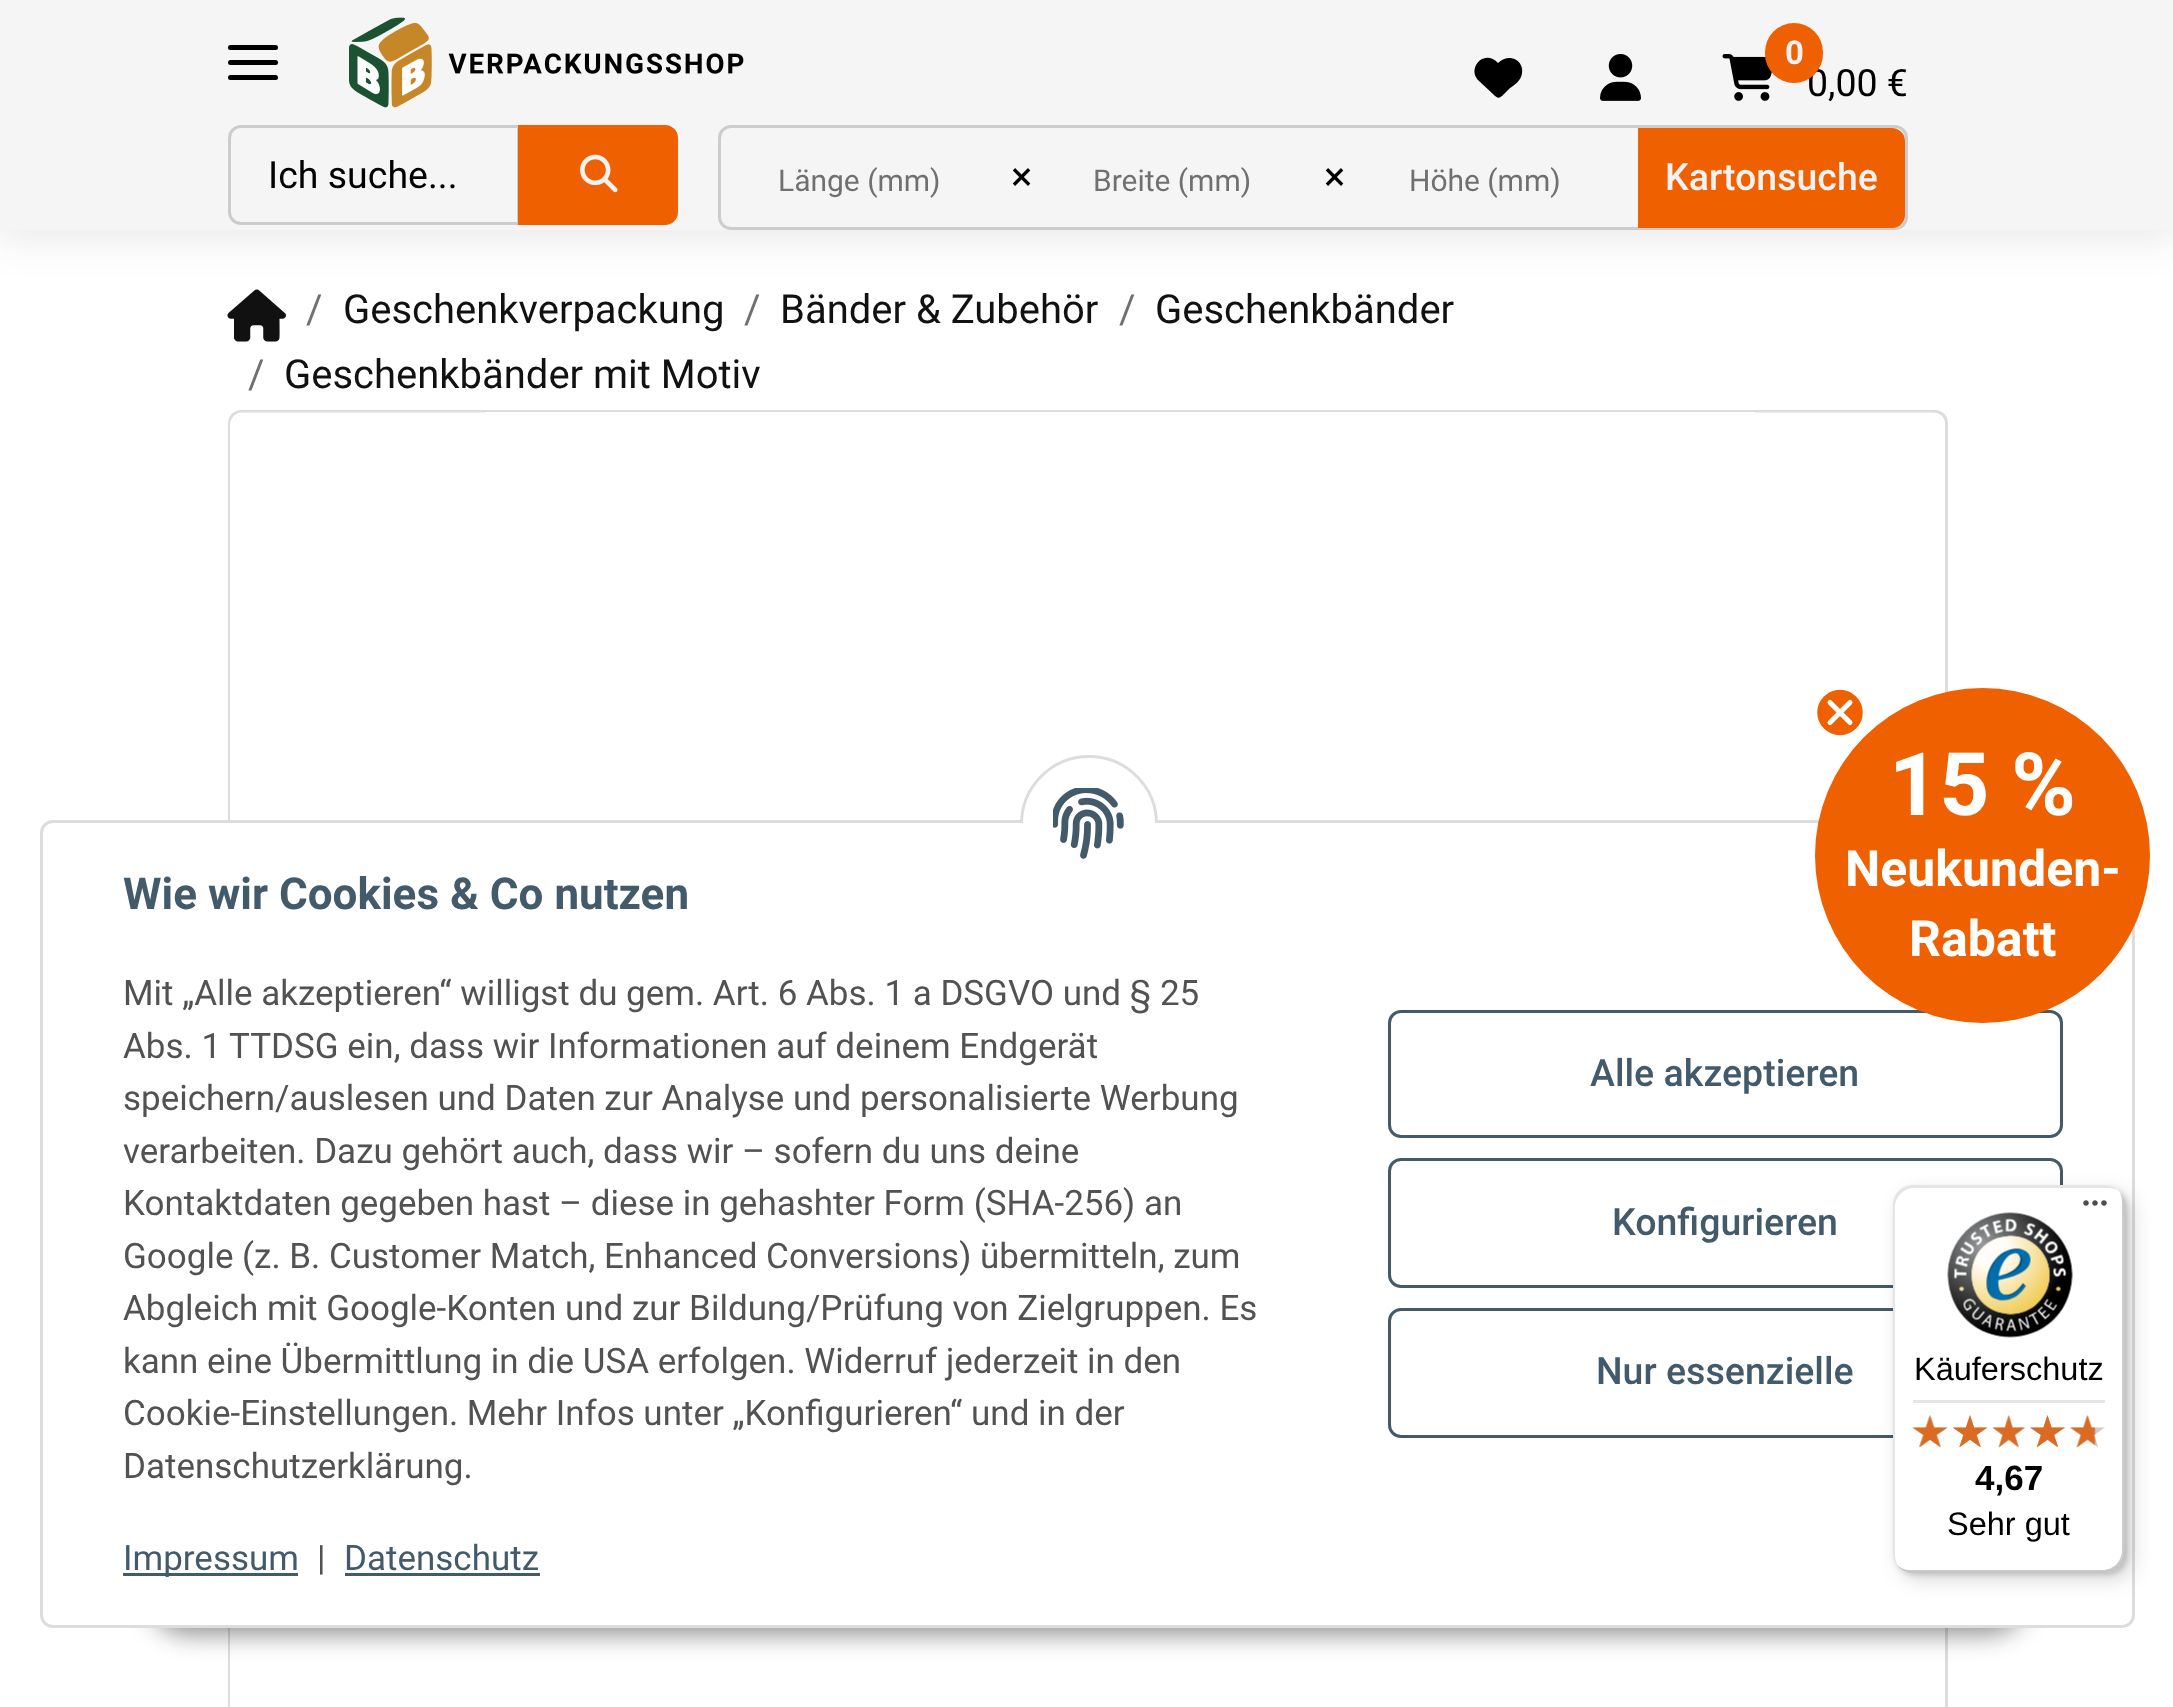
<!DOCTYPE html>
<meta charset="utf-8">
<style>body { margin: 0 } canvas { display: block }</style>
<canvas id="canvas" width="2173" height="1707"></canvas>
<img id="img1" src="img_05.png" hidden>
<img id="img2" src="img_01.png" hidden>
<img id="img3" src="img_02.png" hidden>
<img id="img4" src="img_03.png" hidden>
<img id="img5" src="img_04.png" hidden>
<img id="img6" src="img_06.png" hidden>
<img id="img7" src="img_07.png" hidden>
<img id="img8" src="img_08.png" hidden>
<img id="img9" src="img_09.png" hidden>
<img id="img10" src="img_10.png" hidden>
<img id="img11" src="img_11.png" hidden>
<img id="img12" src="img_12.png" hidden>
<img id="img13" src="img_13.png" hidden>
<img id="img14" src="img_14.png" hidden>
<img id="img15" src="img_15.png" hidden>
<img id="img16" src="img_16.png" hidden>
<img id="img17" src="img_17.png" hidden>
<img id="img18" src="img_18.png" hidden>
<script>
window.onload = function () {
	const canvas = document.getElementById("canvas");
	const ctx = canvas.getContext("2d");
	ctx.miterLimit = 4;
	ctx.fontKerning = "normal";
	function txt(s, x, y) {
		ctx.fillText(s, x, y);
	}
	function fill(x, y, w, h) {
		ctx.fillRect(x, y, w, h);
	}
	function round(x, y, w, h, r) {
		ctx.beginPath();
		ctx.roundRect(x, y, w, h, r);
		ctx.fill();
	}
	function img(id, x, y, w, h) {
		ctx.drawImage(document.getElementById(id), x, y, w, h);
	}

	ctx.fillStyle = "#FFFFFF";
	fill(0, 0, 2173, 1707);
	img("img1", 227, 289, 59, 53);
	ctx.fillStyle = "rgba(17, 17, 17, 0.09)";
	ctx.filter = "blur(20px)";
	ctx.beginPath();
	ctx.rect(-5, 0, 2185, 240);
	ctx.fill();
	ctx.filter = "none";
	ctx.fillStyle = "#F5F5F5";
	fill(0, 0, 2173, 230);
	ctx.fillStyle = "#000000";
	round(228, 60, 50, 5, 2.5);
	round(228, 45, 50, 5, 2.5);
	round(228, 75, 50, 5, 2.5);
	img("img2", 349, 17, 395, 91);
	ctx.beginPath();
	ctx.moveTo(1479, 81);
	ctx.lineTo(1496, 97);
	ctx.lineTo(1479, 81);
	ctx.lineTo(1493, 94);
	ctx.bezierCurveTo(1498, 99, 1499, 99, 1504, 94);
	ctx.lineTo(1509, 89);
	ctx.bezierCurveTo(1513, 86, 1519, 82, 1521, 77);
	ctx.bezierCurveTo(1527, 62, 1510, 51, 1498, 63);
	ctx.bezierCurveTo(1484, 48, 1466, 69, 1479, 81);
	ctx.closePath();
	ctx.fill();
	img("img3", 1600, 54, 41, 47);
	img("img4", 1722, 54, 50, 47);
	ctx.beginPath();
	ctx.roundRect(229.5, 126.5, 289, 97, [11.5, 0, 0, 11.5]);
	ctx.strokeStyle = "#CCCCCC";
	ctx.lineWidth = 3;
	ctx.stroke();
	ctx.fillStyle = "#EF6000";
	ctx.beginPath();
	ctx.roundRect(519.5, 126.5, 157, 97, [0, 11.5, 11.5, 0]);
	ctx.fill();
	ctx.strokeStyle = "#EF6000";
	ctx.stroke();
	img("img5", 580, 154, 38, 39);
	ctx.beginPath();
	ctx.roundRect(719.5, 126.5, 1187, 102, 11.5);
	ctx.strokeStyle = "#CCCCCC";
	ctx.stroke();
	ctx.beginPath();
	ctx.roundRect(1639.5, 129.5, 264, 97, [0, 11.5, 11.5, 0]);
	ctx.fill();
	ctx.strokeStyle = "#EF6000";
	ctx.stroke();
	ctx.beginPath();
	ctx.roundRect(229.5, 411.5, 1717, 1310, 11.5);
	ctx.strokeStyle = "#DDDDDD";
	ctx.stroke();
	img("img6", 230, 412, 1708, 1295);
	ctx.fillStyle = "rgba(17, 17, 17, 0.45)";
	ctx.filter = "blur(12.5px)";
	ctx.beginPath();
	ctx.roundRect(148, 1555, 1880, 80, 40);
	ctx.fill();
	ctx.filter = "none";
	ctx.fillStyle = "#FFFFFF";
	ctx.beginPath();
	ctx.roundRect(41.5, 821.5, 2092, 805, 11.5);
	ctx.fill();
	ctx.stroke();
	ctx.beginPath();
	ctx.roundRect(1389.5, 1011.5, 672, 125, 11.5);
	ctx.strokeStyle = "#435A6B";
	ctx.stroke();
	ctx.fillStyle = "#EF6000";
	ctx.beginPath();
	ctx.arc(1982.5, 855.5, 167.5, 0, Math.PI * 2);
	ctx.fill();
	ctx.beginPath();
	ctx.arc(1840, 712.5, 24, 0, Math.PI * 2);
	ctx.fill();
	ctx.strokeStyle = "#FFFFFF";
	ctx.lineWidth = 2.5;
	ctx.stroke();
	ctx.beginPath();
	ctx.moveTo(1830, 702.5);
	ctx.lineTo(1850, 722.5);
	ctx.moveTo(1830, 722.5);
	ctx.lineTo(1850, 702.5);
	ctx.closePath();
	ctx.lineWidth = 5;
	ctx.lineCap = "round";
	ctx.lineJoin = "round";
	ctx.stroke();
	ctx.fillStyle = "#FFFFFF";
	ctx.beginPath();
	ctx.arc(1089, 824, 67.5, 0, Math.PI * 2);
	ctx.fill();
	ctx.strokeStyle = "#DDDDDD";
	ctx.lineWidth = 3;
	ctx.stroke();
	fill(1020, 823, 138, 70);
	img("img7", 1053, 788, 71, 71);
	ctx.fillStyle = "#435A6B";
	fill(123, 1573, 175, 3);
	fill(345, 1573, 195, 3);
	ctx.beginPath();
	ctx.roundRect(1389.5, 1159.5, 672, 127, 11.5);
	ctx.strokeStyle = "#435A6B";
	ctx.lineJoin = "miter";
	ctx.stroke();
	ctx.beginPath();
	ctx.roundRect(1389.5, 1309.5, 672, 127, 11.5);
	ctx.stroke();
	ctx.fillStyle = "rgba(0, 0, 0, 0.15)";
	ctx.filter = "blur(10px)";
	ctx.beginPath();
	ctx.roundRect(1900, 1193, 233, 387, 20);
	ctx.fill();
	ctx.filter = "none";
	ctx.filter = "blur(2.5px)";
	ctx.beginPath();
	ctx.roundRect(1895, 1188, 233, 387, 20);
	ctx.fill();
	ctx.filter = "none";
	ctx.fillStyle = "#FFFFFF";
	round(1893, 1185, 232, 388, 20);
	ctx.fillStyle = "#E5E5E5";
	ctx.beginPath();
	ctx.moveTo(1915, 1188);
	ctx.lineTo(2108, 1188);
	ctx.bezierCurveTo(2112, 1188, 2117, 1189, 2120, 1192);
	ctx.bezierCurveTo(2116, 1188, 2111, 1185, 2105, 1185);
	ctx.lineTo(1913, 1185);
	ctx.bezierCurveTo(1902, 1185, 1893, 1194, 1893, 1205);
	ctx.lineTo(1893, 1553);
	ctx.bezierCurveTo(1893, 1559, 1896, 1565, 1900, 1568);
	ctx.bezierCurveTo(1897, 1565, 1895, 1560, 1895, 1555);
	ctx.lineTo(1895, 1208);
	ctx.bezierCurveTo(1895, 1196, 1904, 1188, 1915, 1188);
	ctx.closePath();
	ctx.fill();
	ctx.fillStyle = "rgba(0, 0, 0, 0.2)";
	ctx.beginPath();
	ctx.moveTo(1897, 1565);
	ctx.bezierCurveTo(1901, 1570, 1907, 1573, 1913, 1573);
	ctx.lineTo(2105, 1573);
	ctx.bezierCurveTo(2116, 1573, 2125, 1564, 2125, 1553);
	ctx.lineTo(2125, 1205);
	ctx.bezierCurveTo(2125, 1199, 2122, 1194, 2118, 1190);
	ctx.bezierCurveTo(2121, 1193, 2122, 1198, 2122, 1202);
	ctx.lineTo(2122, 1550);
	ctx.bezierCurveTo(2122, 1561, 2114, 1570, 2102, 1570);
	ctx.lineTo(1910, 1570);
	ctx.bezierCurveTo(1905, 1570, 1901, 1568, 1897, 1565);
	ctx.closePath();
	ctx.fill();
	ctx.fillStyle = "rgba(50, 50, 50, 0.2)";
	ctx.beginPath();
	ctx.moveTo(1898, 1566);
	ctx.bezierCurveTo(1901, 1570, 1907, 1573, 1913, 1573);
	ctx.lineTo(2105, 1573);
	ctx.bezierCurveTo(2116, 1573, 2125, 1564, 2125, 1553);
	ctx.lineTo(2125, 1205);
	ctx.bezierCurveTo(2125, 1200, 2123, 1196, 2121, 1193);
	ctx.bezierCurveTo(2123, 1196, 2124, 1200, 2124, 1204);
	ctx.lineTo(2124, 1551);
	ctx.bezierCurveTo(2124, 1562, 2115, 1571, 2104, 1571);
	ctx.lineTo(1911, 1571);
	ctx.bezierCurveTo(1906, 1571, 1901, 1569, 1898, 1566);
	ctx.closePath();
	ctx.fill();
	ctx.fillStyle = "rgba(255, 255, 255, 0.3)";
	ctx.beginPath();
	ctx.moveTo(1898, 1566);
	ctx.bezierCurveTo(1901, 1570, 1907, 1573, 1913, 1573);
	ctx.lineTo(2105, 1573);
	ctx.bezierCurveTo(2116, 1573, 2125, 1564, 2125, 1553);
	ctx.lineTo(2125, 1205);
	ctx.bezierCurveTo(2125, 1199, 2122, 1194, 2118, 1190);
	ctx.bezierCurveTo(2122, 1194, 2124, 1199, 2124, 1204);
	ctx.lineTo(2124, 1551);
	ctx.bezierCurveTo(2124, 1562, 2115, 1571, 2104, 1571);
	ctx.lineTo(1911, 1571);
	ctx.bezierCurveTo(1906, 1571, 1901, 1569, 1898, 1566);
	ctx.closePath();
	ctx.fill();
	img("img8", 2083, 1200, 24, 6);
	img("img9", 1947, 1212, 126, 126);
	ctx.fillStyle = "#E5E5E5";
	fill(1913, 1400, 192, 3);
	img("img10", 1912, 1415, 36, 33);
	img("img11", 1953, 1415, 34, 32);
	img("img12", 1993, 1415, 32, 32);
	img("img13", 2030, 1415, 35, 32);
	img("img13", 2070, 1415, 35, 32);
	img("img14", 1912, 1415, 36, 32);
	img("img15", 1953, 1415, 34, 33);
	img("img16", 1992, 1415, 33, 33);
	img("img17", 2030, 1415, 35, 33);
	img("img18", 2070, 1415, 26, 33);
	ctx.font = "37.5px Roboto";
	ctx.fillStyle = "#000000";
	txt("0,00 €", 1807, 96);
	ctx.fillStyle = "#EF6000";
	round(1765, 23, 58, 60, 29);
	ctx.font = "bold 33px Roboto";
	ctx.fillStyle = "#F2F2F2";
	txt("0", 1785, 64);
	ctx.font = "37.5px Roboto";
	ctx.fillStyle = "#000000";
	txt("Ich suche...", 268, 188);
	ctx.font = "30px Roboto";
	ctx.fillStyle = "#707070";
	txt("Länge (mm)", 778, 191);
	ctx.font = "40px Roboto";
	ctx.fillStyle = "#000000";
	txt("×", 1011, 190);
	ctx.font = "30px Roboto";
	ctx.fillStyle = "#707070";
	txt("Breite (mm)", 1093, 191);
	ctx.font = "40px Roboto";
	ctx.fillStyle = "#000000";
	txt("×", 1324, 190);
	ctx.font = "30px Roboto";
	ctx.fillStyle = "#707070";
	txt("Höhe (mm)", 1409, 191);
	ctx.font = "500 37.5px Roboto";
	ctx.fillStyle = "#F2F2F2";
	txt("Kartonsuche", 1665, 190);
	ctx.font = "40px Roboto";
	ctx.fillStyle = "#707070";
	txt("/", 306, 323);
	ctx.fillStyle = "#111111";
	txt("Geschenkverpackung", 343, 323);
	ctx.fillStyle = "#707070";
	txt("/", 744, 323);
	ctx.fillStyle = "#111111";
	txt("Bänder & Zubehör", 780, 323);
	ctx.fillStyle = "#707070";
	txt("/", 1119, 323);
	ctx.fillStyle = "#111111";
	txt("Geschenkbänder", 1155, 323);
	ctx.fillStyle = "#707070";
	txt("/", 248, 388);
	ctx.fillStyle = "#111111";
	txt("Geschenkbänder mit Motiv", 284, 388);
	ctx.font = "bold 87.5px Roboto";
	ctx.fillStyle = "#FFFFFF";
	txt("15 %", 1889, 815);
	ctx.font = "bold 50px Roboto";
	txt("Neukunden-", 1845, 886);
	txt("Rabatt", 1909, 956);
	ctx.font = "bold 44px Roboto";
	ctx.fillStyle = "#435A6B";
	txt("Wie wir Cookies & Co nutzen", 123, 909);
	ctx.font = "35px Roboto";
	ctx.fillStyle = "#525252";
	txt("Mit „Alle akzeptieren“ willigst du gem. Art. 6 Abs. 1 a DSGVO und § 25", 123, 1005);
	txt("Abs. 1 TTDSG ein, dass wir Informationen auf deinem Endgerät", 123, 1058);
	txt("speichern/auslesen und Daten zur Analyse und personalisierte Werbung", 123, 1110);
	txt("verarbeiten. Dazu gehört auch, dass wir – sofern du uns deine", 123, 1163);
	txt("Kontaktdaten gegeben hast – diese in gehashter Form (SHA-256) an", 123, 1215);
	txt("Google (z. B. Customer Match, Enhanced Conversions) übermitteln, zum", 123, 1268);
	txt("Abgleich mit Google-Konten und zur Bildung/Prüfung von Zielgruppen. Es", 123, 1320);
	txt("kann eine Übermittlung in die USA erfolgen. Widerruf jederzeit in den", 123, 1373);
	txt("Cookie-Einstellungen. Mehr Infos unter „Konfigurieren“ und in der", 123, 1425);
	txt("Datenschutzerklärung.", 123, 1478);
	ctx.fillStyle = "#435A6B";
	txt("Impressum", 123, 1570);
	ctx.fillStyle = "#525252";
	txt("|", 317, 1570);
	ctx.fillStyle = "#435A6B";
	txt("Datenschutz", 344, 1570);
	ctx.font = "500 37.5px Roboto";
	txt("Alle akzeptieren", 1590, 1086);
	txt("Konfigurieren", 1612, 1235);
	txt("Nur essenzielle", 1596, 1384);
	ctx.font = "32.5px Liberation Sans";
	ctx.fillStyle = "#000000";
	txt("Käuferschutz", 1914, 1380);
	ctx.font = "bold 35px Liberation Sans";
	txt("4,67", 1975, 1490);
	ctx.font = "32.5px Liberation Sans";
	txt("Sehr gut", 1947, 1535);
};
</script>
